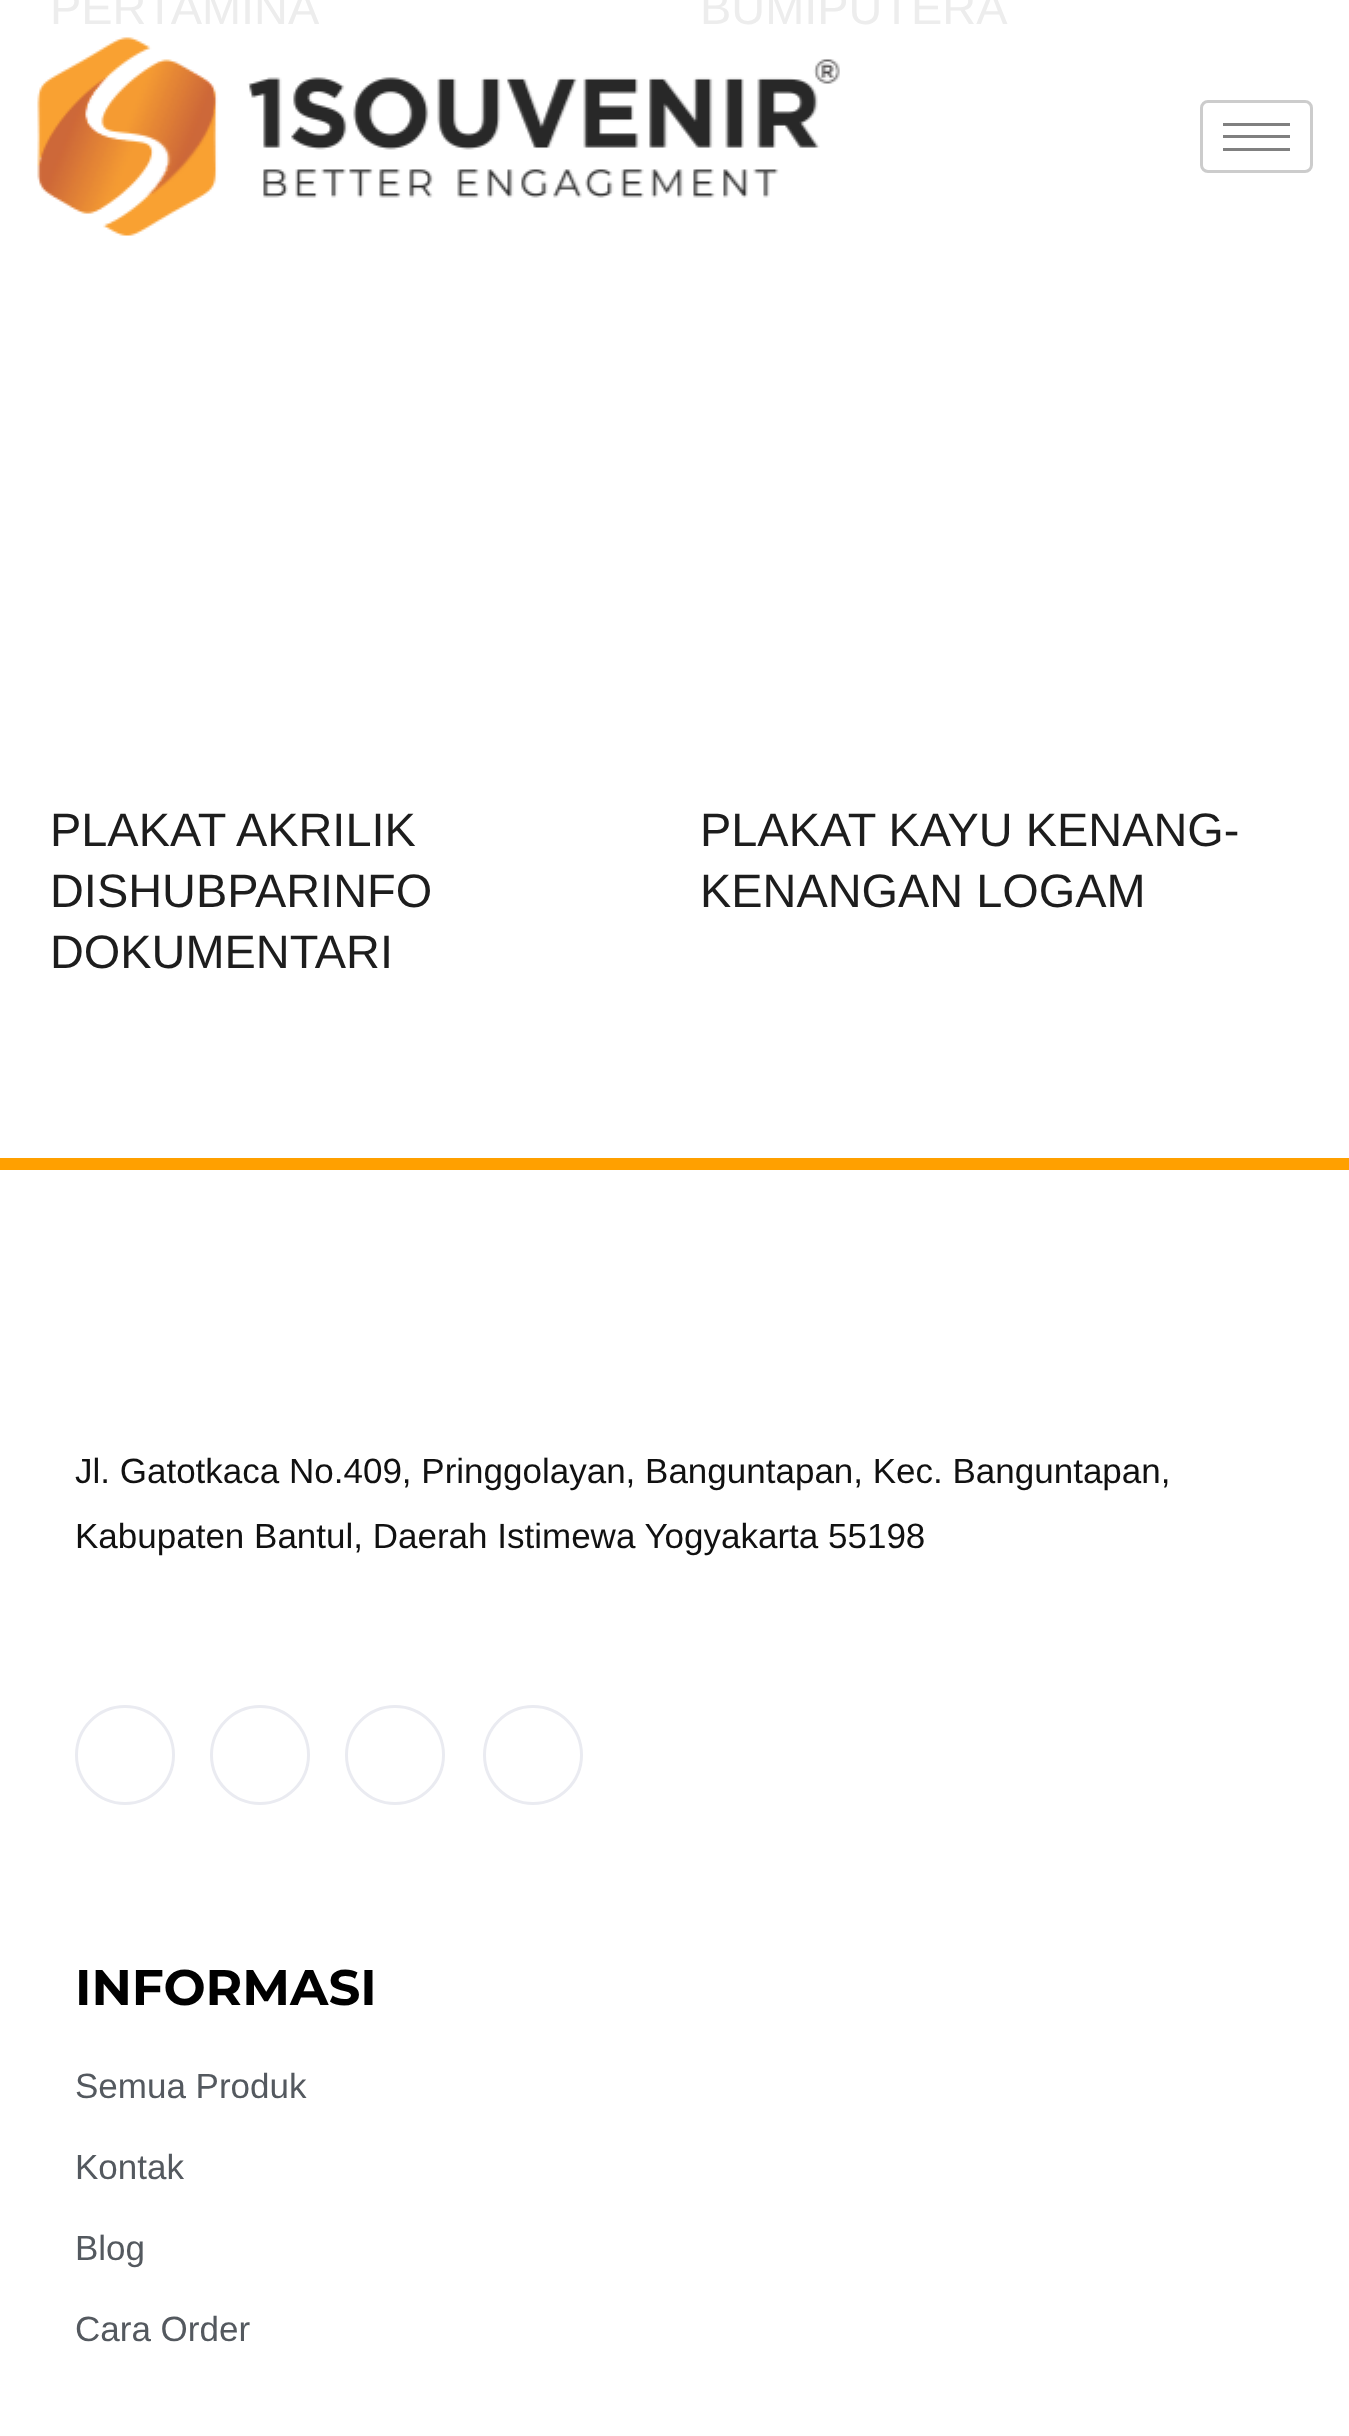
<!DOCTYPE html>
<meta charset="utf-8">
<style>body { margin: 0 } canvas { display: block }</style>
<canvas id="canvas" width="1349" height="2436"></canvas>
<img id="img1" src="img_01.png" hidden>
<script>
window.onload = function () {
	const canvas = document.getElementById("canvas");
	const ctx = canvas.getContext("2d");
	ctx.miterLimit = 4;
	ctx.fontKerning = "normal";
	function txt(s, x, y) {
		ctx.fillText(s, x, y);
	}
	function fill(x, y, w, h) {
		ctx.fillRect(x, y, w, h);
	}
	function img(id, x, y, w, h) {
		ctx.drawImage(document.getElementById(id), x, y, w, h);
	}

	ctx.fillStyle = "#FFFFFF";
	fill(0, 0, 1349, 2436);
	img("img1", 37, 37, 803, 199);
	ctx.beginPath();
	ctx.roundRect(1201.5, 101.5, 110, 70, 6.5);
	ctx.strokeStyle = "#CCCCCC";
	ctx.lineWidth = 3;
	ctx.stroke();
	ctx.fillStyle = "#808080";
	fill(1223, 123, 67, 3);
	fill(1223, 135, 67, 3);
	fill(1223, 148, 67, 3);
	ctx.fillStyle = "#FFA000";
	fill(0, 1158, 1349, 12);
	ctx.beginPath();
	ctx.arc(125, 1755, 48.5, 0, Math.PI * 2);
	ctx.strokeStyle = "#EAEBF1";
	ctx.stroke();
	ctx.beginPath();
	ctx.arc(260, 1755, 48.5, 0, Math.PI * 2);
	ctx.stroke();
	ctx.beginPath();
	ctx.arc(395, 1755, 48.5, 0, Math.PI * 2);
	ctx.stroke();
	ctx.beginPath();
	ctx.arc(533, 1755, 48.5, 0, Math.PI * 2);
	ctx.stroke();
	ctx.font = "46.9px Liberation Sans";
	ctx.fillStyle = "#EDEDED";
	txt("PERTAMINA", 50, 24);
	txt("BUMIPUTERA", 700, 24);
	ctx.fillStyle = "#1D1D1D";
	txt("PLAKAT AKRILIK", 50, 846);
	txt("DISHUBPARINFO", 50, 907);
	txt("DOKUMENTARI", 50, 968);
	txt("PLAKAT KAYU KENANG-", 700, 846);
	txt("KENANGAN LOGAM", 700, 907);
	ctx.font = "35px Liberation Sans";
	ctx.fillStyle = "#111111";
	txt("Jl. Gatotkaca No.409, Pringgolayan, Banguntapan, Kec. Banguntapan,", 75, 1483);
	txt("Kabupaten Bantul, Daerah Istimewa Yogyakarta 55198", 75, 1548);
	ctx.font = "bold 50px Montserrat";
	ctx.fillStyle = "#000000";
	txt("INFORMASI", 75, 2005);
	ctx.font = "35px Liberation Sans";
	ctx.fillStyle = "#54595F";
	txt("Semua Produk", 75, 2098);
	txt("Kontak", 75, 2179);
	txt("Blog", 75, 2260);
	txt("Cara Order", 75, 2341);
};
</script>
